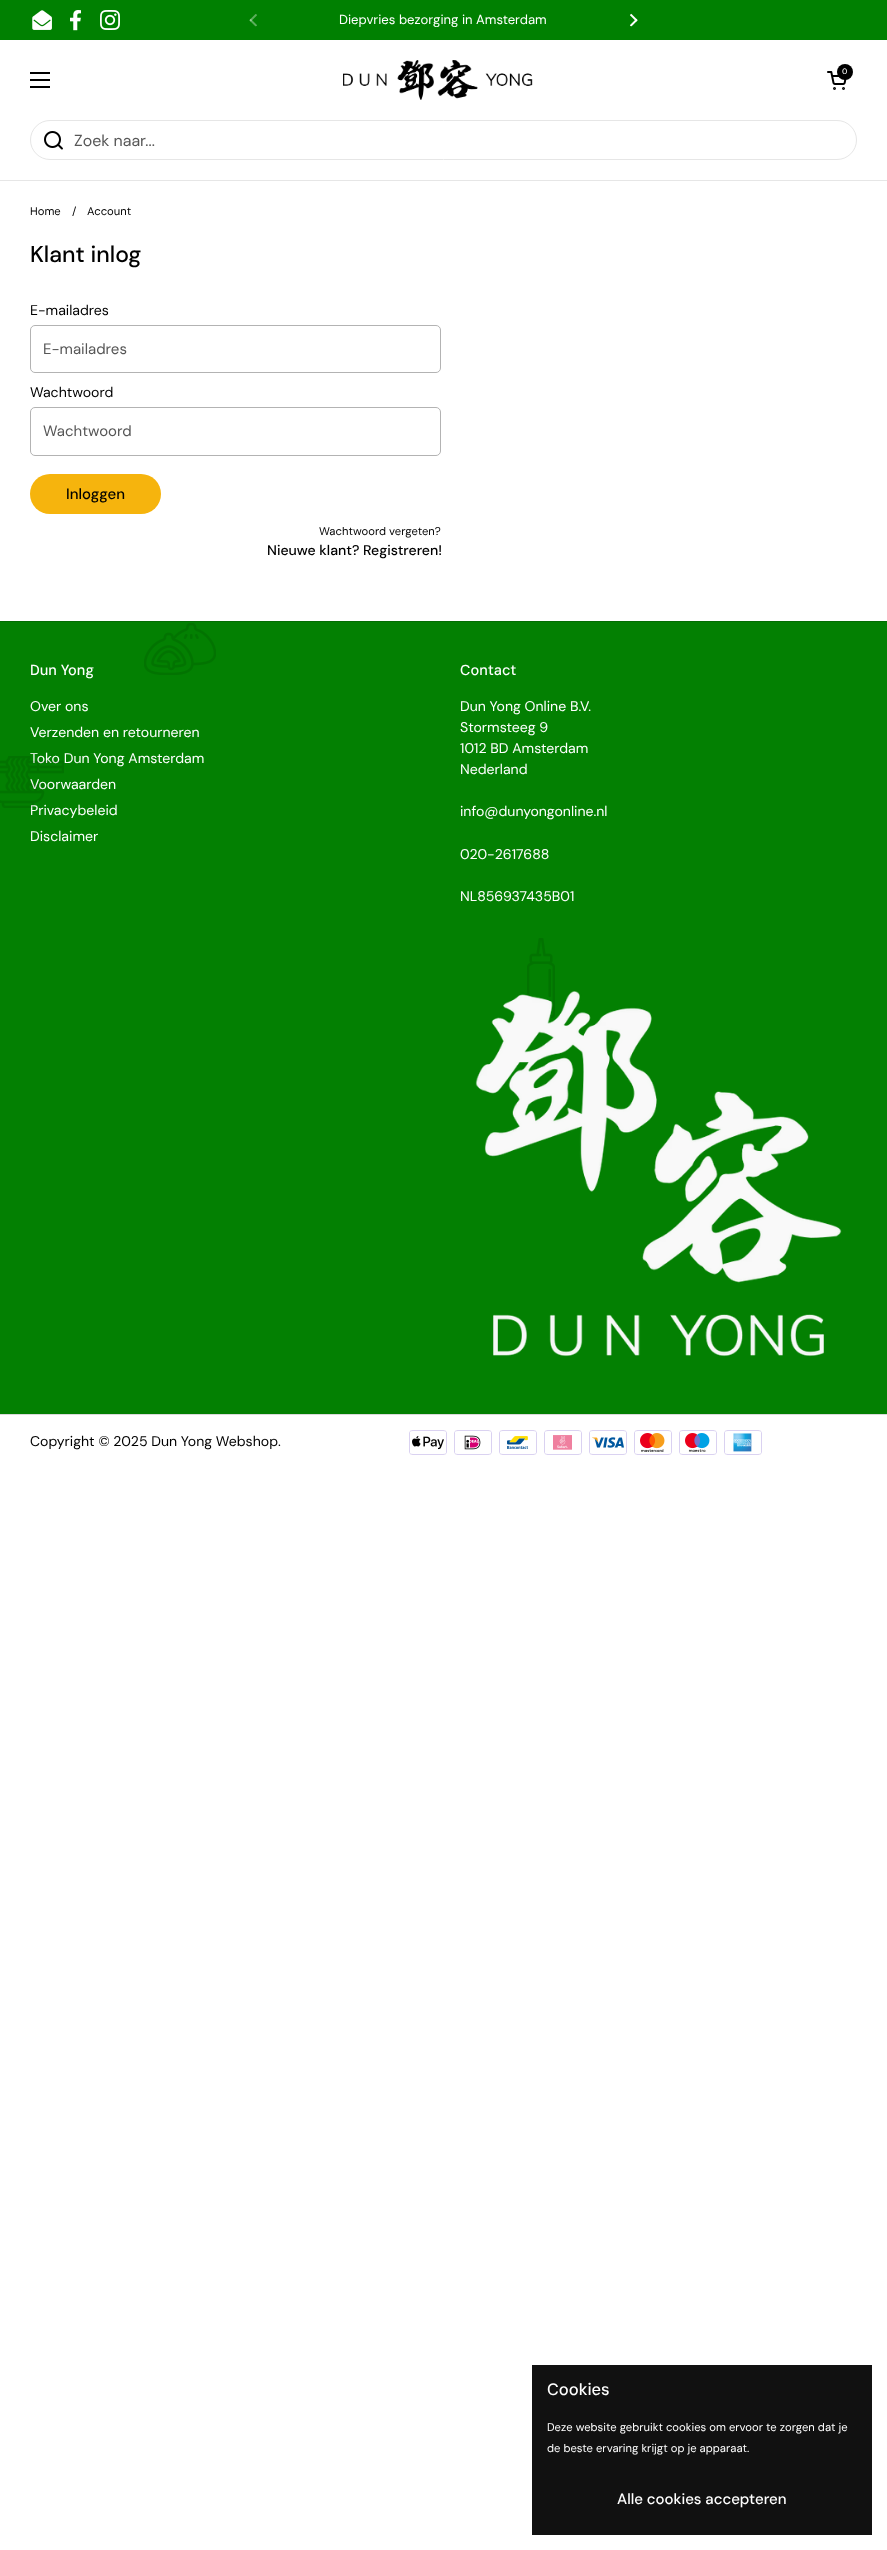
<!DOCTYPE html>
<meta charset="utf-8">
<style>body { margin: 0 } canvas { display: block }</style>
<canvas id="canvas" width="887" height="2550"></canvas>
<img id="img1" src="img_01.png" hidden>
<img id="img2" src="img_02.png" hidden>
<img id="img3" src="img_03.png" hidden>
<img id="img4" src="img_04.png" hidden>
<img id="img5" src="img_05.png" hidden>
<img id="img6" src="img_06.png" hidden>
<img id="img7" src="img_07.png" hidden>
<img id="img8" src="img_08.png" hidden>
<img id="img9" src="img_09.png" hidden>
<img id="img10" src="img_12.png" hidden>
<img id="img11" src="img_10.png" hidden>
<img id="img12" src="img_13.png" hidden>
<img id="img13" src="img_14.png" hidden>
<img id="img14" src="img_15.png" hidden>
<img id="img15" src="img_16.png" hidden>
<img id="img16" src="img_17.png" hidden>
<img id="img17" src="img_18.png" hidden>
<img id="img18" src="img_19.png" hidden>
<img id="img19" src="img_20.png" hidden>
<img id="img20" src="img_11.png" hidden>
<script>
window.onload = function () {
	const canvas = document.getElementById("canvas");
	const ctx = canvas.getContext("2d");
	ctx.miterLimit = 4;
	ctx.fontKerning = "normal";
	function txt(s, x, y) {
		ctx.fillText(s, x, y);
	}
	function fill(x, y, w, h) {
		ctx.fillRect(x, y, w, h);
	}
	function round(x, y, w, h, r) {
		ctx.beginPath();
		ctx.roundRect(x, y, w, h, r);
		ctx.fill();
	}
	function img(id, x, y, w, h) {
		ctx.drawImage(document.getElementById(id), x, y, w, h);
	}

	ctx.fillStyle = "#FFFFFF";
	fill(0, 0, 887, 2550);
	ctx.fillStyle = "#008001";
	fill(0, 0, 887, 40);
	img("img1", 32, 10, 20, 20);
	img("img2", 70, 10, 11, 21);
	img("img3", 100, 10, 20, 20);
	img("img4", 249, 14, 8, 13);
	img("img5", 630, 13, 8, 14);
	ctx.fillStyle = "#000000";
	fill(30, 72, 20, 2);
	fill(30, 79, 20, 2);
	fill(30, 86, 20, 2);
	img("img6", 343, 60, 190, 40);
	img("img7", 827, 71, 20, 19);
	ctx.beginPath();
	ctx.arc(845, 72, 8, 0, Math.PI * 2);
	ctx.fill();
	ctx.fillStyle = "#E6E6E6";
	fill(0, 180, 887, 1);
	ctx.beginPath();
	ctx.roundRect(30.5, 120.5, 826, 39, 19.5);
	ctx.strokeStyle = "#E6E6E6";
	ctx.stroke();
	img("img8", 44, 131, 19, 19);
	ctx.beginPath();
	ctx.roundRect(30.5, 325.5, 410, 47, 4.5);
	ctx.strokeStyle = "#B3B3B3";
	ctx.stroke();
	ctx.beginPath();
	ctx.roundRect(30.5, 407.5, 410, 48, 4.5);
	ctx.stroke();
	ctx.fillStyle = "#F6B40D";
	round(30, 474, 131, 40, 20);
	ctx.fillStyle = "#038002";
	fill(0, 622, 887, 792);
	ctx.fillStyle = "#036D02";
	fill(0, 621, 887, 1);
	img("img9", 144, 623, 72, 52);
	img("img10", 527, 938, 28, 80);
	img("img11", 475, 991, 367, 366);
	ctx.fillStyle = "#D9D9D9";
	fill(0, 1414, 887, 1);
	ctx.beginPath();
	ctx.moveTo(413, 1430.5);
	ctx.lineTo(443, 1430.5);
	ctx.bezierCurveTo(445, 1430.5, 446.5, 1431.5, 446.5, 1432.5);
	ctx.lineTo(446.5, 1452.5);
	ctx.bezierCurveTo(446.5, 1453.5, 445, 1454.5, 443, 1454.5);
	ctx.lineTo(413, 1454.5);
	ctx.bezierCurveTo(411, 1454.5, 409.5, 1453.5, 409.5, 1452.5);
	ctx.lineTo(409.5, 1432.5);
	ctx.bezierCurveTo(409.5, 1431.5, 411, 1430.5, 413, 1430.5);
	ctx.closePath();
	ctx.strokeStyle = "#DAD2F1";
	ctx.stroke();
	img("img12", 412, 1436, 32, 14);
	ctx.beginPath();
	ctx.moveTo(458, 1430.5);
	ctx.lineTo(488, 1430.5);
	ctx.bezierCurveTo(490, 1430.5, 491.5, 1431.5, 491.5, 1432.5);
	ctx.lineTo(491.5, 1452.5);
	ctx.bezierCurveTo(491.5, 1453.5, 490, 1454.5, 488, 1454.5);
	ctx.lineTo(458, 1454.5);
	ctx.bezierCurveTo(456, 1454.5, 454.5, 1453.5, 454.5, 1452.5);
	ctx.lineTo(454.5, 1432.5);
	ctx.bezierCurveTo(454.5, 1431.5, 456, 1430.5, 458, 1430.5);
	ctx.closePath();
	ctx.stroke();
	img("img13", 464, 1435, 17, 15);
	ctx.beginPath();
	ctx.moveTo(503, 1430.5);
	ctx.lineTo(533, 1430.5);
	ctx.bezierCurveTo(535, 1430.5, 536.5, 1431.5, 536.5, 1432.5);
	ctx.lineTo(536.5, 1452.5);
	ctx.bezierCurveTo(536.5, 1453.5, 535, 1454.5, 533, 1454.5);
	ctx.lineTo(503, 1454.5);
	ctx.bezierCurveTo(501, 1454.5, 499.5, 1453.5, 499.5, 1452.5);
	ctx.lineTo(499.5, 1432.5);
	ctx.bezierCurveTo(499.5, 1431.5, 501, 1430.5, 503, 1430.5);
	ctx.closePath();
	ctx.stroke();
	img("img14", 507, 1436, 21, 13);
	ctx.beginPath();
	ctx.moveTo(548, 1430.5);
	ctx.lineTo(578, 1430.5);
	ctx.bezierCurveTo(580, 1430.5, 581.5, 1431.5, 581.5, 1432.5);
	ctx.lineTo(581.5, 1452.5);
	ctx.bezierCurveTo(581.5, 1453.5, 580, 1454.5, 578, 1454.5);
	ctx.lineTo(548, 1454.5);
	ctx.bezierCurveTo(546, 1454.5, 544.5, 1453.5, 544.5, 1452.5);
	ctx.lineTo(544.5, 1432.5);
	ctx.bezierCurveTo(544.5, 1431.5, 546, 1430.5, 548, 1430.5);
	ctx.closePath();
	ctx.stroke();
	img("img15", 553, 1435, 19, 15);
	ctx.beginPath();
	ctx.moveTo(593, 1430.5);
	ctx.lineTo(623, 1430.5);
	ctx.bezierCurveTo(625, 1430.5, 626.5, 1431.5, 626.5, 1432.5);
	ctx.lineTo(626.5, 1452.5);
	ctx.bezierCurveTo(626.5, 1453.5, 625, 1454.5, 623, 1454.5);
	ctx.lineTo(593, 1454.5);
	ctx.bezierCurveTo(591, 1454.5, 589.5, 1453.5, 589.5, 1452.5);
	ctx.lineTo(589.5, 1432.5);
	ctx.bezierCurveTo(589.5, 1431.5, 591, 1430.5, 593, 1430.5);
	ctx.closePath();
	ctx.stroke();
	img("img16", 592, 1437, 32, 11);
	ctx.beginPath();
	ctx.moveTo(638, 1430.5);
	ctx.lineTo(668, 1430.5);
	ctx.bezierCurveTo(670, 1430.5, 671.5, 1431.5, 671.5, 1432.5);
	ctx.lineTo(671.5, 1452.5);
	ctx.bezierCurveTo(671.5, 1453.5, 670, 1454.5, 668, 1454.5);
	ctx.lineTo(638, 1454.5);
	ctx.bezierCurveTo(636, 1454.5, 634.5, 1453.5, 634.5, 1452.5);
	ctx.lineTo(634.5, 1432.5);
	ctx.bezierCurveTo(634.5, 1431.5, 636, 1430.5, 638, 1430.5);
	ctx.closePath();
	ctx.stroke();
	img("img17", 640, 1433, 25, 19);
	ctx.beginPath();
	ctx.moveTo(683, 1430.5);
	ctx.lineTo(713, 1430.5);
	ctx.bezierCurveTo(715, 1430.5, 716.5, 1431.5, 716.5, 1432.5);
	ctx.lineTo(716.5, 1452.5);
	ctx.bezierCurveTo(716.5, 1453.5, 715, 1454.5, 713, 1454.5);
	ctx.lineTo(683, 1454.5);
	ctx.bezierCurveTo(681, 1454.5, 679.5, 1453.5, 679.5, 1452.5);
	ctx.lineTo(679.5, 1432.5);
	ctx.bezierCurveTo(679.5, 1431.5, 681, 1430.5, 683, 1430.5);
	ctx.closePath();
	ctx.stroke();
	img("img18", 685, 1433, 25, 19);
	ctx.beginPath();
	ctx.moveTo(728, 1430.5);
	ctx.lineTo(758, 1430.5);
	ctx.bezierCurveTo(760, 1430.5, 761.5, 1431.5, 761.5, 1432.5);
	ctx.lineTo(761.5, 1452.5);
	ctx.bezierCurveTo(761.5, 1453.5, 760, 1454.5, 758, 1454.5);
	ctx.lineTo(728, 1454.5);
	ctx.bezierCurveTo(726, 1454.5, 724.5, 1453.5, 724.5, 1452.5);
	ctx.lineTo(724.5, 1432.5);
	ctx.bezierCurveTo(724.5, 1431.5, 726, 1430.5, 728, 1430.5);
	ctx.closePath();
	ctx.stroke();
	img("img19", 733, 1433, 19, 19);
	ctx.fillStyle = "#111111";
	fill(532, 2365, 340, 170);
	ctx.font = "13.1px 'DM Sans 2'";
	ctx.fillStyle = "#FFFFFF";
	txt("Diepvries bezorging in Amsterdam", 339, 24);
	ctx.font = "500 8px DM Sans";
	txt("0", 842, 74);
	ctx.font = "16px 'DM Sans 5'";
	ctx.fillStyle = "#575757";
	txt("Zoek naar...", 74, 146);
	ctx.font = "11.25px 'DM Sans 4'";
	ctx.fillStyle = "#000000";
	txt("Home", 30, 215);
	txt("/", 72, 215);
	txt("Account", 87, 215);
	ctx.font = "500 23px 'DM Sans 2'";
	txt("Klant inlog", 30, 262);
	ctx.font = "14.1px DM Sans";
	txt("E-mailadres", 30, 315);
	ctx.font = "15px 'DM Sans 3'";
	ctx.fillStyle = "#575757";
	txt("E-mailadres", 43, 354);
	ctx.font = "14.1px DM Sans";
	ctx.fillStyle = "#000000";
	txt("Wachtwoord", 30, 397);
	ctx.font = "15px 'DM Sans 3'";
	ctx.fillStyle = "#575757";
	txt("Wachtwoord", 43, 436);
	ctx.font = "500 15px 'DM Sans 3'";
	ctx.fillStyle = "#000000";
	txt("Inloggen", 66, 499);
	ctx.font = "11.25px 'DM Sans 4'";
	txt("Wachtwoord vergeten?", 319, 535);
	ctx.font = "500 14.1px 'DM Sans 4'";
	txt("Nieuwe klant? Registreren!", 267, 555);
	ctx.font = "500 14.5px DM Sans";
	ctx.fillStyle = "#FFFFFF";
	txt("Dun Yong", 30, 675);
	ctx.font = "14.1px DM Sans";
	txt("Over ons", 30, 711);
	txt("Verzenden en retourneren", 30, 737);
	txt("Toko Dun Yong Amsterdam", 30, 763);
	txt("Voorwaarden", 30, 789);
	txt("Privacybeleid", 30, 815);
	txt("Disclaimer", 30, 841);
	ctx.font = "500 14.5px DM Sans";
	txt("Contact", 460, 675);
	ctx.font = "14.1px DM Sans";
	txt("Dun Yong Online B.V.", 460, 711);
	txt("Stormsteeg 9", 460, 732);
	txt("1012 BD Amsterdam", 460, 753);
	txt("Nederland", 460, 774);
	txt("info@dunyongonline.nl", 460, 816);
	txt("020-2617688", 460, 859);
	txt("NL856937435B01", 460, 901);
	img("img20", 0, 756, 64, 52);
	ctx.fillStyle = "#000000";
	txt("Copyright © 2025 Dun Yong Webshop.", 30, 1446);
	ctx.font = "500 16.5px DM Sans";
	ctx.fillStyle = "#FFFFFF";
	txt("Cookies", 547, 2395);
	ctx.font = "11.25px 'DM Sans 4'";
	txt("Deze website gebruikt cookies om ervoor te zorgen dat je", 547, 2431);
	txt("de beste ervaring krijgt op je apparaat.", 547, 2452);
	ctx.font = "500 15px 'DM Sans 3'";
	txt("Alle cookies accepteren", 617, 2504);
};
</script>
